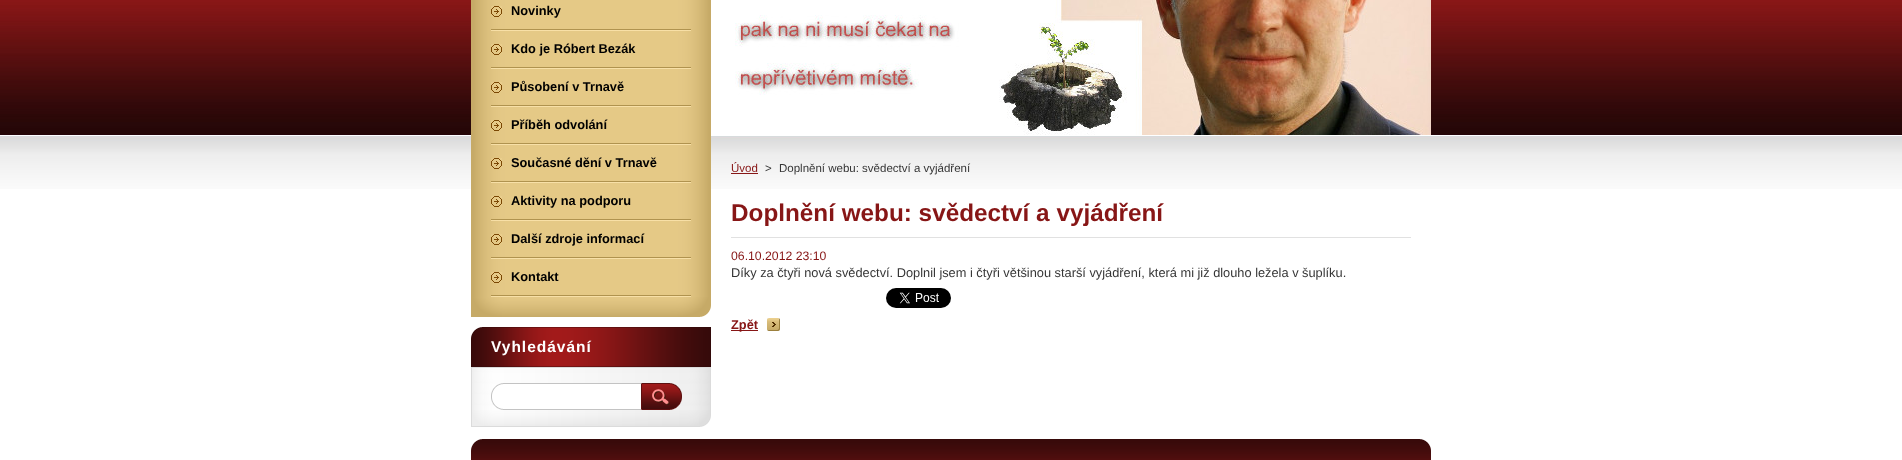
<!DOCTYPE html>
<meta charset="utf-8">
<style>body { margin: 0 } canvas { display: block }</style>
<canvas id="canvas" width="1902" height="460"></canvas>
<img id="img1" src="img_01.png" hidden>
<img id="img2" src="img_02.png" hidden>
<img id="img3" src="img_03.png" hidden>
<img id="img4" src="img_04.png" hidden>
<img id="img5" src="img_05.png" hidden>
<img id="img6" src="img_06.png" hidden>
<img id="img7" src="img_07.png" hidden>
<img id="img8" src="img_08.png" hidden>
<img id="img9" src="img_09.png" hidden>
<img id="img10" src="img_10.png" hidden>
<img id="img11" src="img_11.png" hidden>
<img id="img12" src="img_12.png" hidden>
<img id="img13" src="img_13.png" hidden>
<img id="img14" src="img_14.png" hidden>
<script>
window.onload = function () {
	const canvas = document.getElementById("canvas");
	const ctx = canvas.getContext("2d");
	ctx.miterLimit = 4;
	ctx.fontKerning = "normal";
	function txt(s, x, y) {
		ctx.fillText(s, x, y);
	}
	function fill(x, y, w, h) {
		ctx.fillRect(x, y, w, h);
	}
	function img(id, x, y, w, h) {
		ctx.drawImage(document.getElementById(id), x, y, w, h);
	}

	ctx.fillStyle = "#FFFFFF";
	fill(0, 0, 1902, 460);
	img("img1", 0, 0, 1902, 189);
	img("img2", 471, 297, 240, 20);
	img("img3", 471, 0, 240, 297);
	img("img4", 491, 29, 200, 2);
	img("img5", 491, 6, 11, 11);
	img("img4", 491, 67, 200, 2);
	img("img5", 491, 44, 11, 11);
	img("img4", 491, 105, 200, 2);
	img("img5", 491, 82, 11, 11);
	img("img4", 491, 143, 200, 2);
	img("img5", 491, 120, 11, 11);
	img("img4", 491, 181, 200, 2);
	img("img5", 491, 158, 11, 11);
	img("img4", 491, 219, 200, 2);
	img("img5", 491, 196, 11, 11);
	img("img4", 491, 257, 200, 2);
	img("img5", 491, 234, 11, 11);
	img("img4", 491, 295, 200, 2);
	img("img5", 491, 272, 11, 11);
	img("img6", 471, 410, 240, 17);
	img("img7", 471, 327, 240, 40);
	img("img8", 471, 368, 240, 42);
	ctx.fillStyle = "#DBDBDB";
	fill(471, 367, 240, 1);
	img("img9", 491, 383, 150, 27);
	img("img10", 641, 383, 41, 27);
	img("img11", 711, 0, 720, 135);
	ctx.fillStyle = "#871616";
	fill(731, 173, 27, 1);
	ctx.fillStyle = "#E1E1E1";
	fill(731, 237, 680, 1);
	img("img12", 886, 288, 65, 20);
	img("img13", 767, 318, 13, 13);
	ctx.fillStyle = "#871616";
	fill(731, 330, 27, 1);
	img("img14", 471, 439, 960, 21);
	ctx.font = "bold 12.8px Liberation Sans";
	ctx.fillStyle = "#000000";
	txt("Novinky", 511, 15);
	txt("Kdo je Róbert Bezák", 511, 53);
	txt("Působení v Trnavě", 511, 91);
	txt("Příběh odvolání", 511, 129);
	txt("Současné dění v Trnavě", 511, 167);
	txt("Aktivity na podporu", 511, 205);
	txt("Další zdroje informací", 511, 243);
	txt("Kontakt", 511, 281);
	ctx.letterSpacing = "1px";
	ctx.font = "bold 15.5px Liberation Sans";
	ctx.fillStyle = "#FFFFFF";
	txt("Vyhledávání", 491, 352);
	ctx.letterSpacing = "0px";
	ctx.font = "11.5px Liberation Sans";
	ctx.fillStyle = "#871616";
	txt("Úvod", 731, 172);
	ctx.fillStyle = "#363636";
	txt(">", 765, 172);
	txt("Doplnění webu: svědectví a vyjádření", 779, 172);
	ctx.font = "bold 24.3px Liberation Sans";
	ctx.fillStyle = "#871616";
	txt("Doplnění webu: svědectví a vyjádření", 731, 221);
	ctx.font = "12.25px Liberation Sans";
	txt("06.10.2012 23:10", 731, 260);
	ctx.font = "12.8px Liberation Sans";
	ctx.fillStyle = "#363636";
	txt("Díky za čtyři nová svědectví. Doplnil jsem i čtyři většinou starší vyjádření, která mi již dlouho ležela v šuplíku.", 731, 277);
	ctx.font = "bold 12.8px Liberation Sans";
	ctx.fillStyle = "#871616";
	txt("Zpět", 731, 329);
};
</script>
